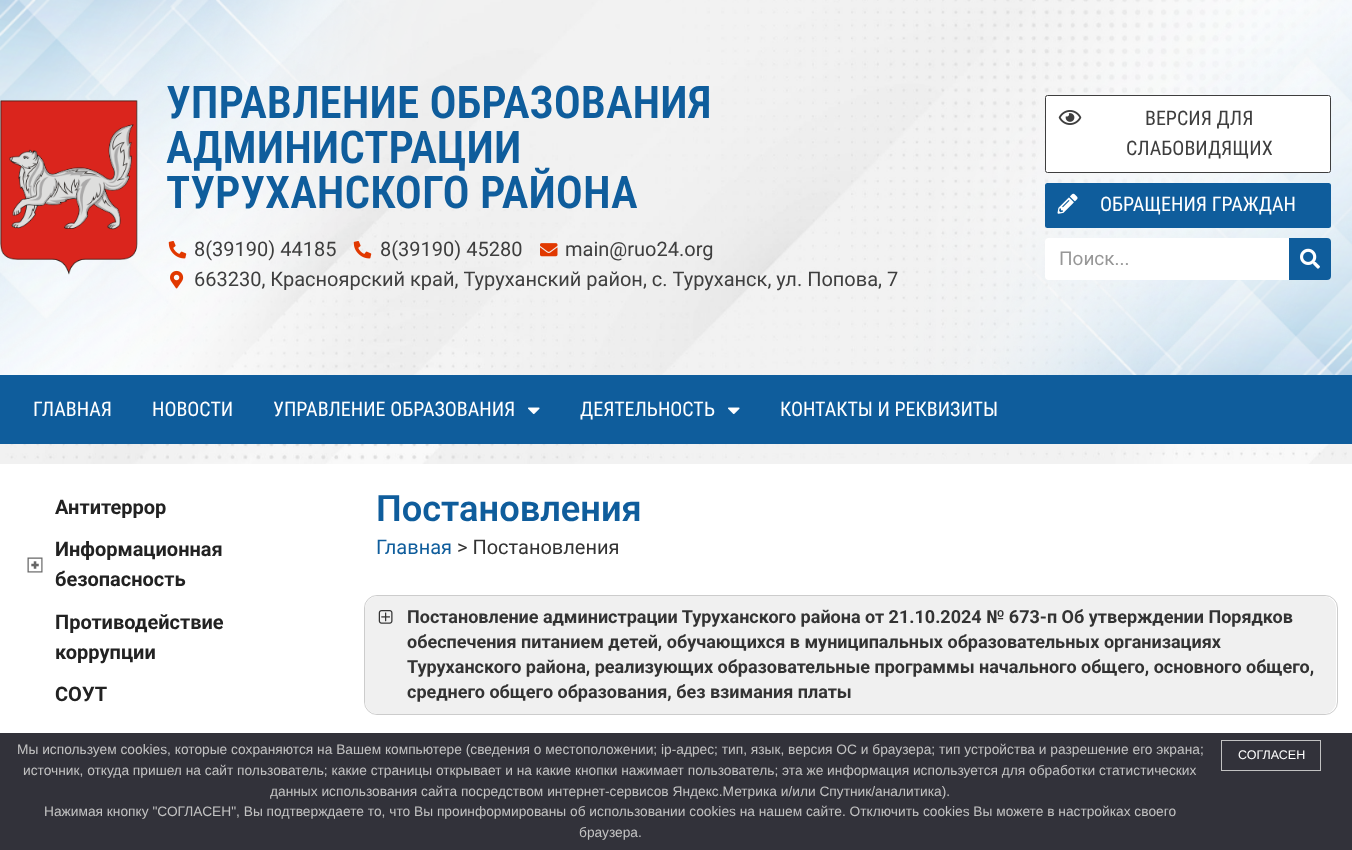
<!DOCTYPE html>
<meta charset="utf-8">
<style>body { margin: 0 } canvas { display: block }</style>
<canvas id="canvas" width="1352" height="850"></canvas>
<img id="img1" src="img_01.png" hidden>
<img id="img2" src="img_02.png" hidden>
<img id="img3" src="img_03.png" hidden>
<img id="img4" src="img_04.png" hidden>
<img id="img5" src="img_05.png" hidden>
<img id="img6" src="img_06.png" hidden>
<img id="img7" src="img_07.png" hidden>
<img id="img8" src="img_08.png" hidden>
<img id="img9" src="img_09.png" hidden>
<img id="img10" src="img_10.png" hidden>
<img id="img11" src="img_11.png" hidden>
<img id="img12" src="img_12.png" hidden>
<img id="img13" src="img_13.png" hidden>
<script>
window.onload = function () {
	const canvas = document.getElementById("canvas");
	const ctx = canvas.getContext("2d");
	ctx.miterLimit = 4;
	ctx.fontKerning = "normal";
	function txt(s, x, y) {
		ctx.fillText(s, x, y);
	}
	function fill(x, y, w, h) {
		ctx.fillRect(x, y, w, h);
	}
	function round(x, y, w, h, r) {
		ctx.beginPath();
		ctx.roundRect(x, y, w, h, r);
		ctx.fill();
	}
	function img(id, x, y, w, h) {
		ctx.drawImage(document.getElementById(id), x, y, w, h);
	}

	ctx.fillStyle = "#FFFFFF";
	fill(0, 0, 1352, 850);
	img("img1", 0, 0, 1352, 464);
	img("img2", 0, 0, 1352, 375);
	img("img3", 0, 100, 138, 175);
	img("img4", 168, 241, 19, 18);
	img("img5", 353, 241, 19, 18);
	img("img6", 540, 243, 18, 14);
	img("img7", 170, 270, 14, 19);
	ctx.beginPath();
	ctx.roundRect(1045.5, 95.5, 285, 77, 2);
	ctx.fill();
	ctx.strokeStyle = "#3E3E3E";
	ctx.stroke();
	img("img8", 1058, 110, 24, 15);
	ctx.fillStyle = "#0F5D9C";
	round(1045, 183, 286, 45, 2.5);
	img("img9", 1057, 193, 21, 21);
	ctx.fillStyle = "#FFFFFF";
	round(1045, 238, 286, 42, 4);
	ctx.fillStyle = "#0F5D9C";
	ctx.beginPath();
	ctx.roundRect(1289, 238, 42, 42, [0, 4, 4, 0]);
	ctx.fill();
	img("img10", 1300, 248, 20, 21);
	fill(0, 375, 1352, 69);
	img("img11", 528, 407, 12, 8);
	img("img11", 728, 407, 12, 8);
	img("img12", 27, 557, 16, 16);
	ctx.beginPath();
	ctx.roundRect(364.5, 595.5, 973, 119, 12.5);
	ctx.strokeStyle = "#CCCCCC";
	ctx.stroke();
	ctx.fillStyle = "#F0F0F0";
	round(365, 596, 971, 118, 13);
	img("img13", 378, 610, 15, 14);
	ctx.fillStyle = "#32323A";
	fill(0, 733, 1352, 117);
	ctx.strokeStyle = "#C2C2C2";
	ctx.strokeRect(1221.5, 740.5, 99, 30);
	ctx.font = "600 45px Roboto Condensed";
	ctx.fillStyle = "#0F5D9C";
	txt("УПРАВЛЕНИЕ ОБРАЗОВАНИЯ", 166, 118);
	txt("АДМИНИСТРАЦИИ", 166, 163);
	txt("ТУРУХАНСКОГО РАЙОНА", 166, 208);
	ctx.font = "20px Roboto";
	ctx.fillStyle = "#3E3E3E";
	txt("8(39190) 44185", 194, 256);
	txt("8(39190) 45280", 380, 256);
	txt("main@ruo24.org", 565, 256);
	txt("663230, Красноярский край, Туруханский район, с. Туруханск, ул. Попова, 7", 194, 286);
	ctx.font = "20px Roboto Condensed";
	txt("ВЕРСИЯ ДЛЯ", 1145, 125);
	txt("СЛАБОВИДЯЩИХ", 1126, 155);
	ctx.fillStyle = "#FFFFFF";
	txt("ОБРАЩЕНИЯ ГРАЖДАН", 1100, 211);
	ctx.font = "19px Roboto";
	ctx.fillStyle = "#979797";
	txt("Поиск...", 1059, 265);
	ctx.font = "20px Roboto Condensed";
	ctx.fillStyle = "#FFFFFF";
	txt("ГЛАВНАЯ", 33, 416);
	txt("НОВОСТИ", 152, 416);
	txt("УПРАВЛЕНИЕ ОБРАЗОВАНИЯ", 273, 416);
	txt("ДЕЯТЕЛЬНОСТЬ", 580, 416);
	txt("КОНТАКТЫ И РЕКВИЗИТЫ", 780, 416);
	ctx.font = "bold 20px Roboto";
	ctx.fillStyle = "#222222";
	txt("Антитеррор", 55, 514);
	txt("Информационная", 55, 556);
	txt("безопасность", 55, 586);
	txt("Противодействие", 55, 629);
	txt("коррупции", 55, 659);
	txt("СОУТ", 55, 701);
	ctx.font = "600 36.25px Roboto";
	ctx.fillStyle = "#0F5D9C";
	txt("Постановления", 376, 521);
	ctx.font = "20px Roboto";
	txt("Главная", 376, 554);
	ctx.fillStyle = "#333333";
	txt("> Постановления", 457, 554);
	ctx.font = "bold 18px Roboto";
	txt("Постановление администрации Туруханского района от 21.10.2024 № 673-п Об утверждении Порядков", 407, 623);
	txt("обеспечения питанием детей, обучающихся в муниципальных образовательных организациях", 407, 648);
	txt("Туруханского района, реализующих образовательные программы начального общего, основного общего,", 407, 673);
	txt("среднего общего образования, без взимания платы", 407, 698);
	ctx.font = "13.75px Liberation Sans";
	ctx.fillStyle = "#C2C2C2";
	txt("Мы используем cookies, которые сохраняются на Вашем компьютере (сведения о местоположении; ip-адрес; тип, язык, версия ОС и браузера; тип устройства и разрешение его экрана;", 17, 754);
	txt("источник, откуда пришел на сайт пользователь; какие страницы открывает и на какие кнопки нажимает пользователь; эта же информация используется для обработки статистических", 23, 775);
	txt("данных использования сайта посредством интернет-сервисов Яндекс.Метрика и/или Спутник/аналитика).", 270, 796);
	txt("Нажимая кнопку \"СОГЛАСЕН\", Вы подтверждаете то, что Вы проинформированы об использовании cookies на нашем сайте. Отключить cookies Вы можете в настройках своего", 44, 816);
	txt("браузера.", 579, 837);
	ctx.font = "12.5px Liberation Sans";
	ctx.fillStyle = "#FFFFFF";
	txt("СОГЛАСЕН", 1238, 759);
};
</script>
